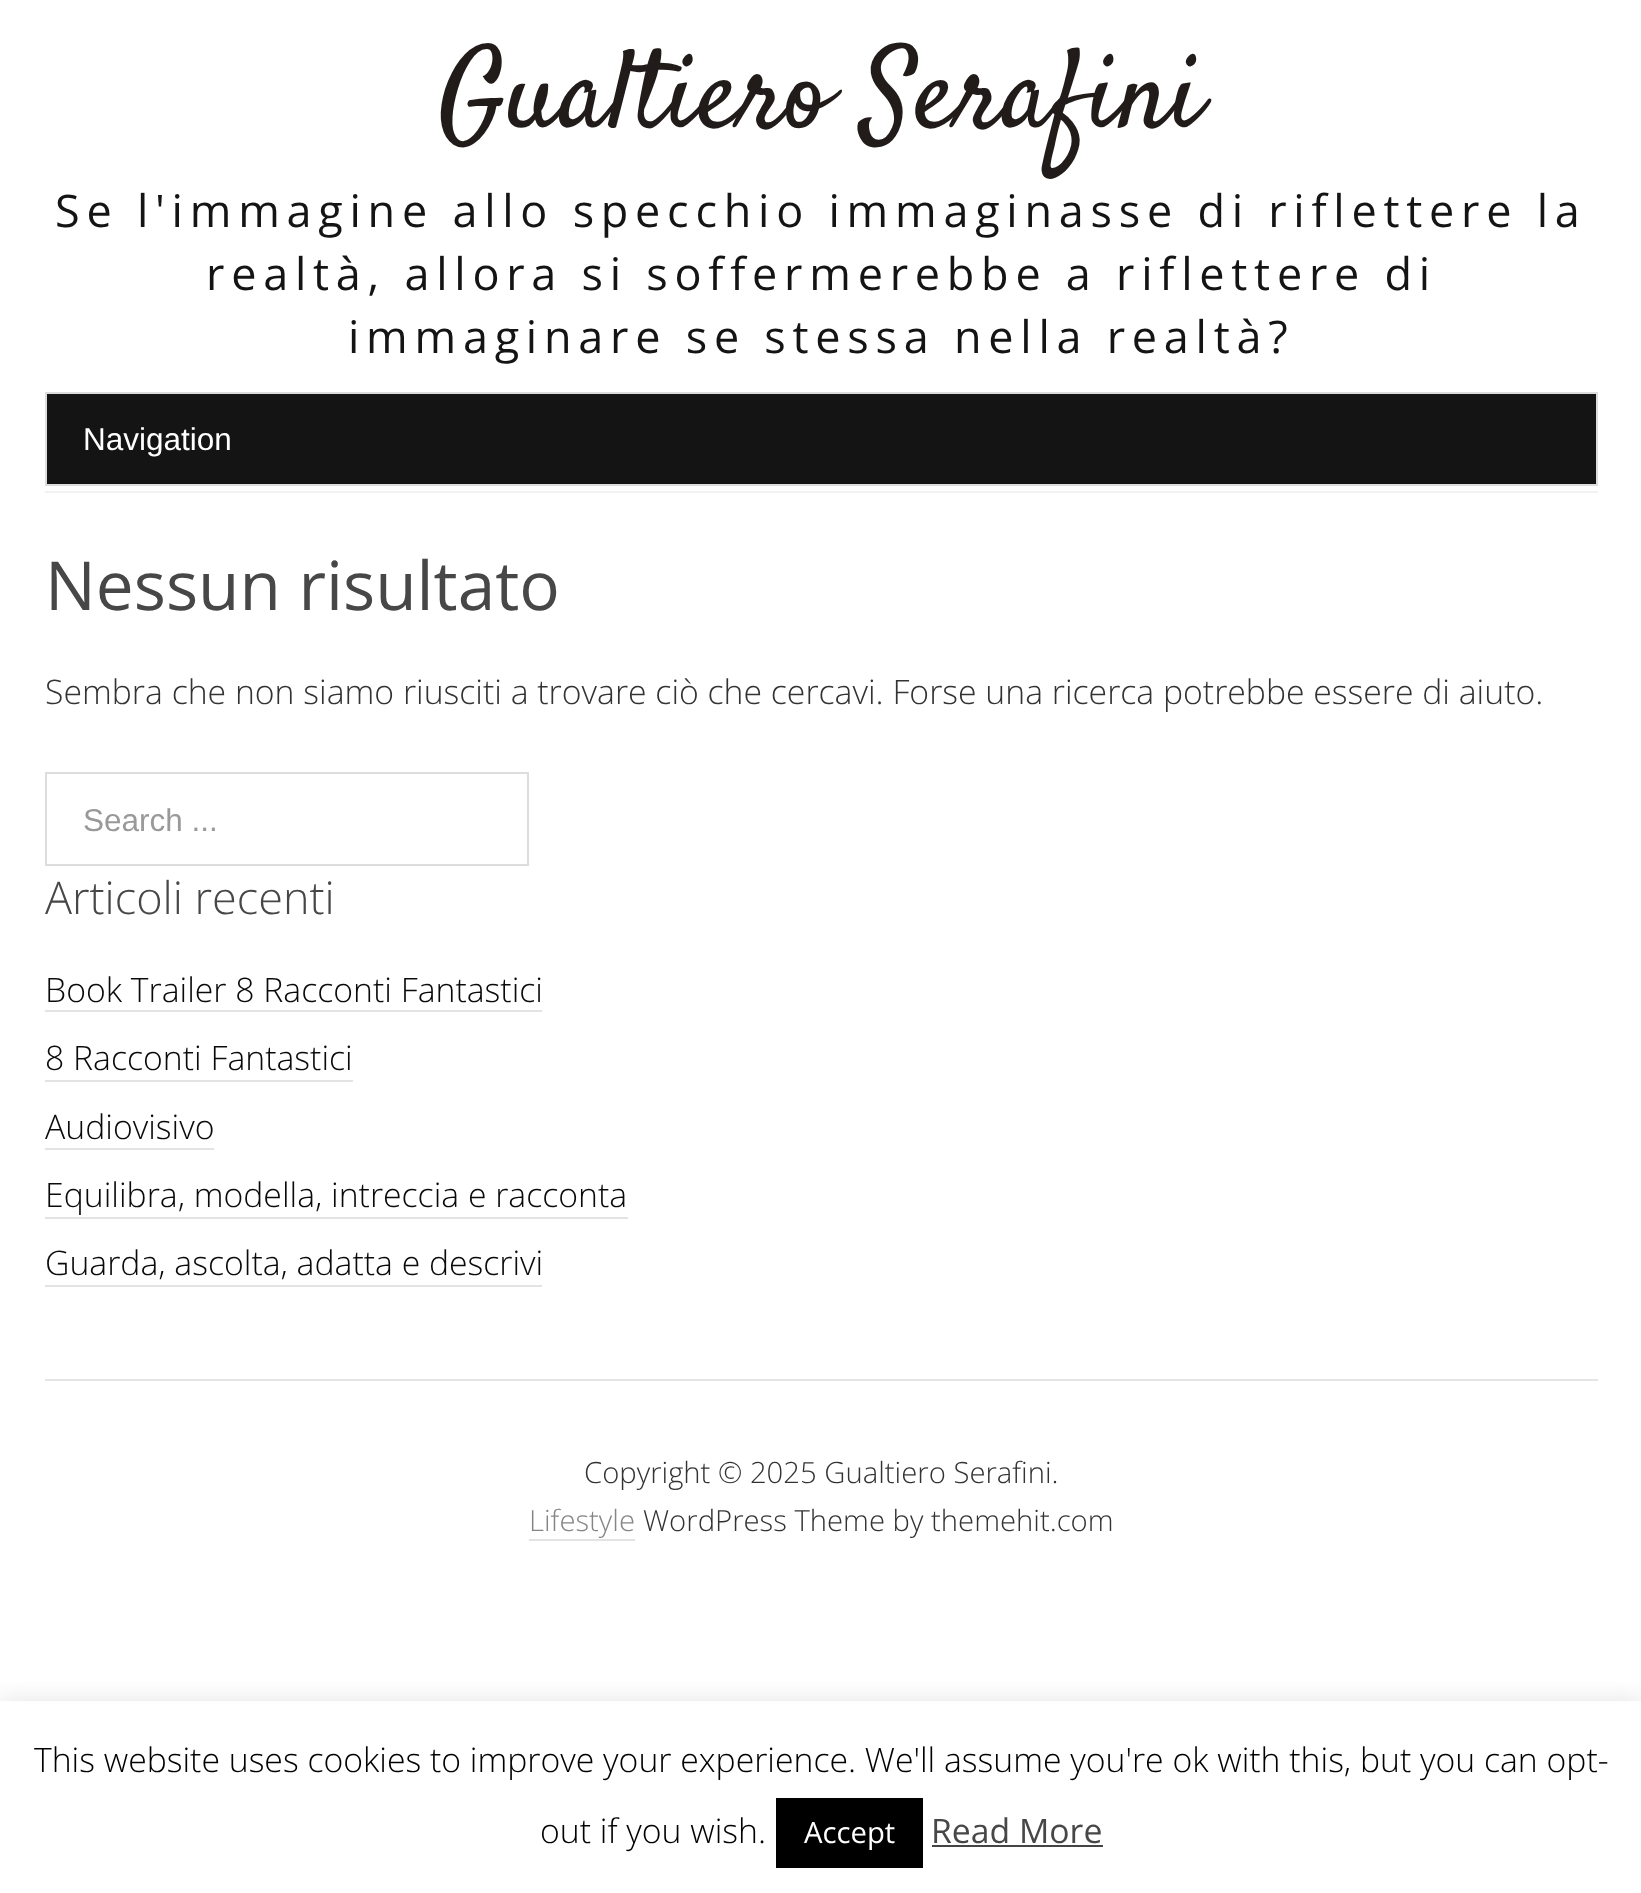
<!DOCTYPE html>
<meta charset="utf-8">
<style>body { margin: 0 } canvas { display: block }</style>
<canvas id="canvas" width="1641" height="1893"></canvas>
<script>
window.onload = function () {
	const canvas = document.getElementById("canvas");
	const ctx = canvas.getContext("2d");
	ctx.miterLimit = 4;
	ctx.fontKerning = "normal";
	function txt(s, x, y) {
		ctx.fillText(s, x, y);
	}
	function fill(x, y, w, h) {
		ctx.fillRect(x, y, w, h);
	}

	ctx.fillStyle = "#FFFFFF";
	fill(0, 0, 1641, 1893);
	ctx.fillStyle = "#F2F2F2";
	fill(45, 491, 1553, 2);
	ctx.fillStyle = "#141414";
	ctx.beginPath();
	ctx.rect(46, 393, 1551, 92);
	ctx.fill();
	ctx.strokeStyle = "#DDDDDD";
	ctx.lineWidth = 2;
	ctx.stroke();
	ctx.strokeRect(46, 773, 482, 92);
	ctx.fillStyle = "#E3E3E3";
	fill(45, 1010, 497, 2);
	fill(45, 1080, 308, 2);
	fill(45, 1148, 169, 2);
	fill(45, 1217, 583, 2);
	fill(45, 1285, 497, 2);
	ctx.fillStyle = "#E5E5E5";
	fill(45, 1379, 1553, 2);
	ctx.fillStyle = "#E3E3E3";
	fill(529, 1539, 106, 2);
	ctx.save();
	ctx.beginPath();
	ctx.rect(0, 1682, 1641, 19);
	ctx.clip();
	ctx.fillStyle = "rgba(172, 171, 171, 0.3)";
	ctx.filter = "blur(11px)";
	ctx.beginPath();
	ctx.rect(0, 1699, 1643, 193);
	ctx.fill();
	ctx.filter = "none";
	ctx.restore();
	ctx.fillStyle = "#000000";
	fill(776, 1798, 147, 70);
	ctx.fillStyle = "#444444";
	fill(932, 1845, 171, 2);
	ctx.font = "112.5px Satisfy";
	ctx.fillStyle = "#211B1A";
	txt("Gualtiero Serafini", 439, 126);
	ctx.letterSpacing = "6.75px";
	ctx.font = "45px Open Sans";
	ctx.fillStyle = "#141414";
	txt("Se l'immagine allo specchio immaginasse di riflettere la", 55, 227);
	txt("realtà, allora si soffermerebbe a riflettere di", 206, 290);
	txt("immaginare se stessa nella realtà?", 348, 353);
	ctx.letterSpacing = "0px";
	ctx.font = "31.5px Liberation Sans";
	ctx.fillStyle = "#FFFFFF";
	txt("Navigation", 83, 450);
	ctx.font = "67.5px Open Sans";
	ctx.fillStyle = "#474747";
	txt("Nessun risultato", 45, 610);
	ctx.font = "300 33.75px Open Sans";
	ctx.fillStyle = "#333333";
	txt("Sembra che non siamo riusciti a trovare ciò che cercavi. Forse una ricerca potrebbe essere di aiuto.", 45, 704);
	ctx.font = "31.5px Liberation Sans";
	ctx.fillStyle = "#999999";
	txt("Search ...", 83, 831);
	ctx.font = "300 45px Open Sans";
	ctx.fillStyle = "#474747";
	txt("Articoli recenti", 45, 914);
	ctx.font = "300 33.75px Open Sans";
	ctx.fillStyle = "#0A0A0A";
	txt("Book Trailer 8 Racconti Fantastici", 45, 1002);
	txt("8 Racconti Fantastici", 45, 1070);
	txt("Audiovisivo", 45, 1139);
	txt("Equilibra, modella, intreccia e racconta", 45, 1207);
	txt("Guarda, ascolta, adatta e descrivi", 45, 1275);
	ctx.font = "300 29.25px Open Sans";
	ctx.fillStyle = "#333333";
	txt("Copyright © 2025 Gualtiero Serafini.", 584, 1483);
	ctx.fillStyle = "#858585";
	txt("Lifestyle", 529, 1531);
	ctx.fillStyle = "#333333";
	txt("WordPress Theme by themehit.com", 643, 1531);
	ctx.font = "300 33.75px Open Sans";
	ctx.fillStyle = "#000000";
	txt("This website uses cookies to improve your experience. We'll assume you're ok with this, but you can opt-", 34, 1772);
	txt("out if you wish.", 540, 1843);
	ctx.font = "29.25px Open Sans";
	ctx.fillStyle = "#FFFFFF";
	txt("Accept", 804, 1843);
	ctx.font = "33.75px Open Sans";
	ctx.fillStyle = "#474747";
	txt("Read More", 931, 1843);
};
</script>
